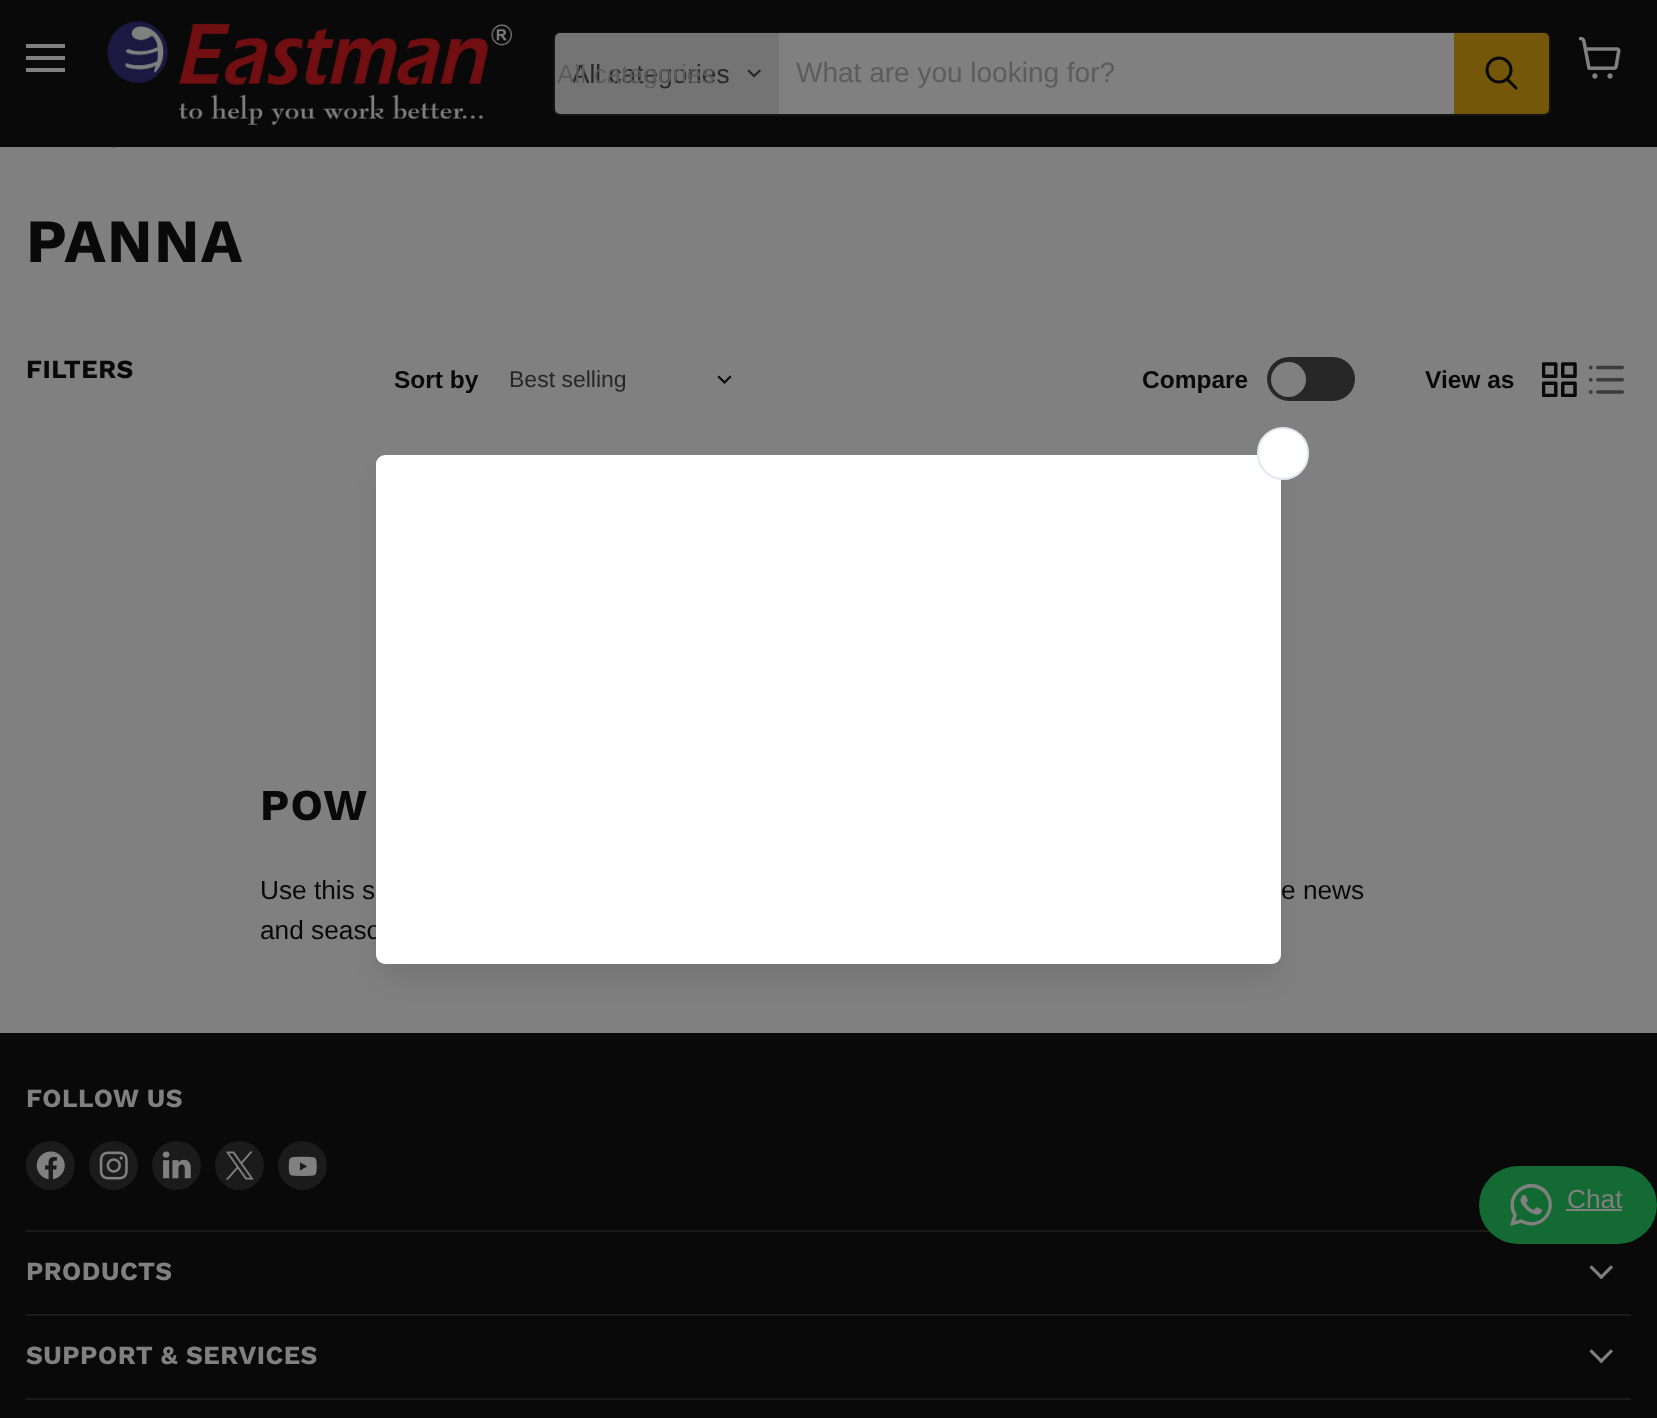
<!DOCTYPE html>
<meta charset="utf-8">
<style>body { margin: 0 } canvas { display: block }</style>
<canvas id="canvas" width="1657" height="1418"></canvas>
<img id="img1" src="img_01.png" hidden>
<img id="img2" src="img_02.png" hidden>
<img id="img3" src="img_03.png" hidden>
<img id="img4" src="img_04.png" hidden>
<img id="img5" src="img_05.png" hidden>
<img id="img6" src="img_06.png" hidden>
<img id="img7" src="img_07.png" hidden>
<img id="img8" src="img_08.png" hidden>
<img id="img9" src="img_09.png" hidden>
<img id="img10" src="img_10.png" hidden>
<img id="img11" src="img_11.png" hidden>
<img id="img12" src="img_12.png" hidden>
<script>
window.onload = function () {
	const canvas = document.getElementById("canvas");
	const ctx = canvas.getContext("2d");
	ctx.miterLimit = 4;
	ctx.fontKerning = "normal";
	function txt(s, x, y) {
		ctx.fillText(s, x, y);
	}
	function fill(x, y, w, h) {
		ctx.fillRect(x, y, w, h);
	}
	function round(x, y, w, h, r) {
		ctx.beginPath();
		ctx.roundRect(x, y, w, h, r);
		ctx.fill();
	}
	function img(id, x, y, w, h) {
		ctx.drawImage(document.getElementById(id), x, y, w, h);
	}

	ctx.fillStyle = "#808080";
	fill(0, 0, 1657, 1418);
	ctx.fillStyle = "#090909";
	fill(0, 0, 1657, 147);
	ctx.fillStyle = "#808080";
	fill(26, 44, 39, 4);
	fill(26, 56, 39, 4);
	fill(26, 68, 39, 4);
	img("img1", 1579, 37, 42, 42);
	img("img2", 107, 20, 405, 105);
	ctx.beginPath();
	ctx.roundRect(554, 33, 996, 82, 6);
	ctx.strokeStyle = "rgba(64, 64, 64, 0.2)";
	ctx.lineWidth = 2;
	ctx.stroke();
	ctx.fillStyle = "#747474";
	ctx.beginPath();
	ctx.roundRect(555, 33, 224, 81, [5, 0, 0, 5]);
	ctx.fill();
	ctx.beginPath();
	ctx.moveTo(754, 76);
	ctx.lineTo(759.5, 71);
	ctx.moveTo(754, 76);
	ctx.lineTo(749, 71);
	ctx.strokeStyle = "#272727";
	ctx.lineWidth = 2.2;
	ctx.lineCap = "square";
	ctx.stroke();
	ctx.fillStyle = "#808080";
	fill(779, 33, 675, 81);
	ctx.fillStyle = "#75570A";
	ctx.beginPath();
	ctx.roundRect(1455, 34, 93, 79, [0, 4, 4, 0]);
	ctx.fill();
	ctx.strokeStyle = "#75570A";
	ctx.lineWidth = 2;
	ctx.stroke();
	ctx.beginPath();
	ctx.moveTo(1516, 88);
	ctx.lineTo(1507.5, 79.5);
	ctx.strokeStyle = "#090909";
	ctx.lineWidth = 3;
	ctx.lineCap = "round";
	ctx.stroke();
	ctx.beginPath();
	ctx.arc(1499, 70, 12, 0, Math.PI * 2);
	ctx.stroke();
	img("img3", 112, 147, 3, 2);
	ctx.beginPath();
	ctx.moveTo(724.5, 382.5);
	ctx.lineTo(730, 377);
	ctx.moveTo(724.5, 382.5);
	ctx.lineTo(719, 377);
	ctx.lineWidth = 2.2;
	ctx.lineCap = "square";
	ctx.stroke();
	ctx.fillStyle = "#272727";
	round(1267, 357, 88, 44, 22);
	ctx.fillStyle = "#808080";
	ctx.beginPath();
	ctx.arc(1288.5, 379.5, 17.5, 0, Math.PI * 2);
	ctx.fill();
	img("img4", 1542, 362, 35, 35);
	img("img5", 1589, 365, 35, 29);
	ctx.fillStyle = "rgba(0, 0, 0, 0.1)";
	ctx.filter = "blur(13px)";
	ctx.beginPath();
	ctx.roundRect(382, 478, 894, 499, 4);
	ctx.fill();
	ctx.filter = "none";
	ctx.save();
	ctx.beginPath();
	ctx.rect(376, 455, 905, 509);
	ctx.clip();
	ctx.fillStyle = "rgba(0, 0, 0, 0.12)";
	ctx.filter = "blur(17.5px)";
	ctx.beginPath();
	ctx.roundRect(382, 460, 894, 499, 4);
	ctx.fill();
	ctx.filter = "none";
	ctx.restore();
	ctx.fillStyle = "#090909";
	fill(0, 1033, 1657, 385);
	ctx.fillStyle = "#1B1B1B";
	fill(26, 1230, 1464, 2);
	ctx.beginPath();
	ctx.arc(50.5, 1165.5, 24.5, 0, Math.PI * 2);
	ctx.fill();
	img("img6", 36, 1151, 29, 29);
	ctx.beginPath();
	ctx.arc(113.5, 1165.5, 24.5, 0, Math.PI * 2);
	ctx.fill();
	img("img7", 99, 1151, 29, 29);
	ctx.beginPath();
	ctx.arc(176.5, 1165.5, 24.5, 0, Math.PI * 2);
	ctx.fill();
	img("img8", 162, 1151, 29, 28);
	ctx.beginPath();
	ctx.arc(239.5, 1165.5, 24.5, 0, Math.PI * 2);
	ctx.fill();
	img("img9", 225, 1151, 29, 29);
	ctx.beginPath();
	ctx.arc(302.5, 1165.5, 24.5, 0, Math.PI * 2);
	ctx.fill();
	img("img10", 288, 1156, 29, 20);
	fill(26, 1314, 1605, 2);
	img("img11", 1589, 1265, 24, 14);
	fill(26, 1398, 1605, 2);
	img("img11", 1589, 1349, 24, 14);
	ctx.fillStyle = "#136A33";
	round(1479, 1166, 178, 78, 39);
	img("img12", 1510, 1183, 42, 43);
	ctx.fillStyle = "#808080";
	fill(1566, 1209, 56, 2);
	ctx.font = "26.25px Liberation Sans";
	ctx.fillStyle = "#272727";
	txt("All categories", 572, 83);
	ctx.save();
	ctx.beginPath();
	ctx.rect(557, 58, 220, 30);
	ctx.clip();
	ctx.fillStyle = "#5C5C5C";
	txt("All categories", 557, 83);
	ctx.restore();
	ctx.font = "28px Liberation Sans";
	ctx.fillStyle = "#5C5C5C";
	txt("What are you looking for?", 796, 82);
	ctx.letterSpacing = "1.25px";
	ctx.font = "bold 61.5px Work Sans";
	ctx.fillStyle = "#090909";
	txt("PANNA", 26, 262);
	ctx.letterSpacing = "0.5px";
	ctx.font = "bold 26px Work Sans";
	txt("FILTERS", 26, 378);
	ctx.letterSpacing = "0px";
	ctx.font = "bold 24.5px Liberation Sans";
	txt("Sort by", 394, 388);
	ctx.font = "23px Liberation Sans";
	ctx.fillStyle = "#272727";
	txt("Best selling", 509, 387);
	ctx.font = "bold 24.5px Liberation Sans";
	ctx.fillStyle = "#090909";
	txt("Compare", 1142, 388);
	txt("View as", 1425, 388);
	ctx.letterSpacing = "1px";
	ctx.font = "bold 44px Work Sans";
	txt("POW", 260, 820);
	ctx.letterSpacing = "0px";
	ctx.font = "26.25px Liberation Sans";
	txt("Use this s", 260, 899);
	txt("e news", 1281, 899);
	txt("and seaso", 260, 939);
	ctx.fillStyle = "#FFFFFF";
	round(376, 455, 905, 509, 9);
	ctx.beginPath();
	ctx.roundRect(1258, 428, 50, 51, 25);
	ctx.fill();
	ctx.strokeStyle = "#E2E8F0";
	ctx.lineWidth = 2;
	ctx.stroke();
	ctx.letterSpacing = "0.5px";
	ctx.font = "bold 26px Work Sans";
	ctx.fillStyle = "#808080";
	txt("FOLLOW US", 26, 1107);
	txt("PRODUCTS", 26, 1280);
	txt("SUPPORT & SERVICES", 26, 1364);
	ctx.letterSpacing = "0px";
	ctx.font = "26.25px Liberation Sans";
	txt("Chat", 1567, 1208);
};
</script>
